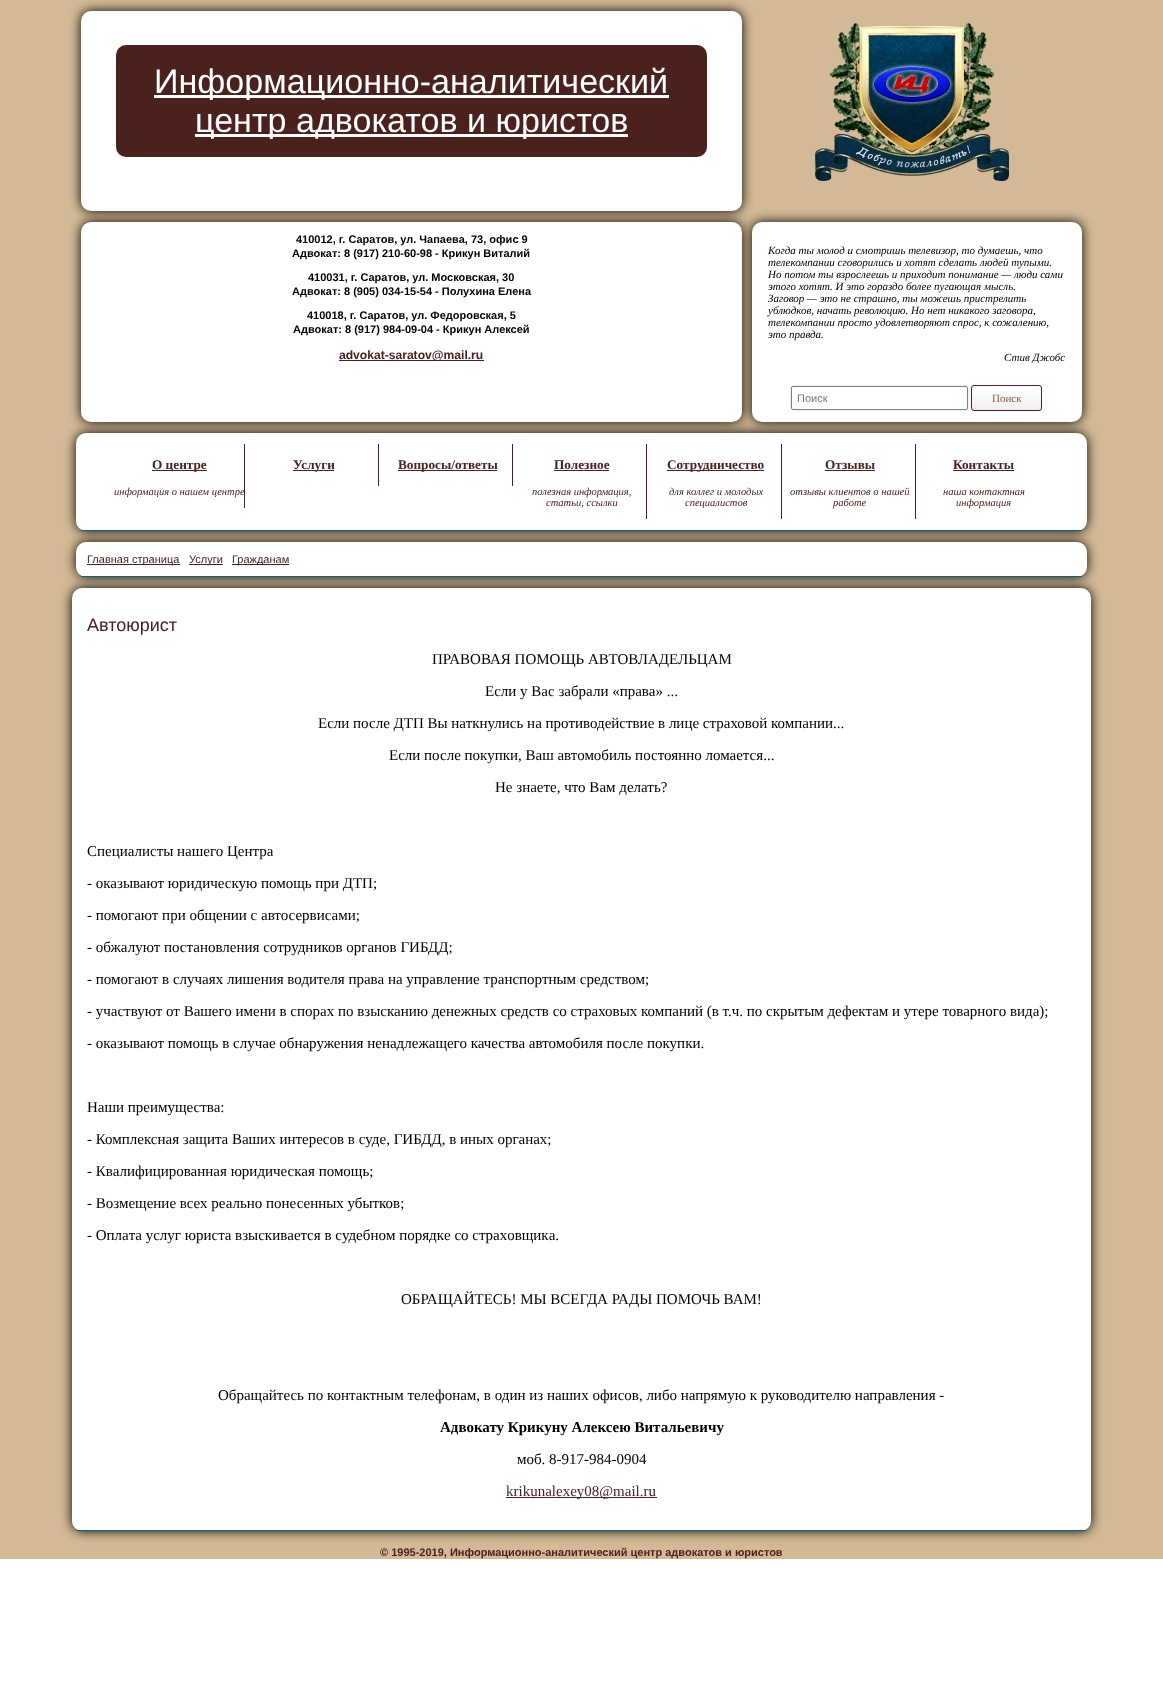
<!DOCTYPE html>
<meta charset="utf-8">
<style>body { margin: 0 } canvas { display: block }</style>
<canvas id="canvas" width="1163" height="1708"></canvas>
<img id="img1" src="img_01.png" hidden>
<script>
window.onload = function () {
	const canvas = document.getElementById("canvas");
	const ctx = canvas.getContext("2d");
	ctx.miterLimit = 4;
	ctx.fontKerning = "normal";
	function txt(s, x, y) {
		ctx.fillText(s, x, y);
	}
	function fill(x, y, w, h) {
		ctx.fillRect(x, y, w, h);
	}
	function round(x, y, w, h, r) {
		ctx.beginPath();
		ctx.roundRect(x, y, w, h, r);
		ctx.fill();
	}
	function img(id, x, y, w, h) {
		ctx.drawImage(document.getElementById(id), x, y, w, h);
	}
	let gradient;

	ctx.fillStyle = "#FFFFFF";
	fill(0, 0, 1163, 1708);
	ctx.fillStyle = "#D3B995";
	fill(0, 0, 1163, 1559);
	ctx.fillStyle = "#000000";
	ctx.filter = "blur(6px)";
	ctx.beginPath();
	ctx.roundRect(81, 11, 661, 200, 10);
	ctx.fill();
	ctx.filter = "none";
	ctx.fillStyle = "#FFFFFF";
	round(81, 11, 661, 200, 10);
	ctx.fillStyle = "#4A211D";
	round(116, 45, 591, 112, 10);
	ctx.fillStyle = "#FFFFFF";
	fill(154, 95, 515, 3);
	fill(195, 134, 433, 3);
	img("img1", 815, 23, 194, 158);
	ctx.fillStyle = "#000000";
	ctx.filter = "blur(6px)";
	ctx.beginPath();
	ctx.roundRect(81, 222, 661, 200, 10);
	ctx.fill();
	ctx.filter = "none";
	ctx.fillStyle = "#FFFFFF";
	round(81, 222, 661, 200, 10);
	ctx.fillStyle = "#4A211D";
	fill(339, 360, 145, 1);
	ctx.fillStyle = "#000000";
	ctx.filter = "blur(6px)";
	ctx.beginPath();
	ctx.roundRect(752, 222, 330, 200, 10);
	ctx.fill();
	ctx.filter = "none";
	ctx.fillStyle = "#FFFFFF";
	round(752, 222, 330, 200, 10);
	ctx.fillStyle = "#D4D1D1";
	ctx.filter = "blur(1px)";
	ctx.beginPath();
	ctx.roundRect(791, 386, 177, 24, 2);
	ctx.fill();
	ctx.filter = "none";
	ctx.fillStyle = "#FFFFFF";
	ctx.beginPath();
	ctx.roundRect(791.5, 386.5, 176, 23, 1.5);
	ctx.fill();
	ctx.strokeStyle = "#808080";
	ctx.stroke();
	ctx.save();
	ctx.beginPath();
	ctx.roundRect(971, 385, 71, 26, 3);
	ctx.clip();
	gradient = ctx.createLinearGradient(972, 386, 972, 410);
	gradient.addColorStop(0.05, "#FFFFFF");
	gradient.addColorStop(1, "#F0F0F0");
	ctx.fillStyle = gradient;
	fill(971, 386, 71, 24);
	ctx.restore();
	ctx.beginPath();
	ctx.roundRect(971.5, 385.5, 70, 25, 2.5);
	ctx.strokeStyle = "#4A211D";
	ctx.stroke();
	ctx.fillStyle = "#000000";
	ctx.filter = "blur(6px)";
	ctx.beginPath();
	ctx.roundRect(76, 542, 1011, 35, 10);
	ctx.fill();
	ctx.filter = "none";
	ctx.fillStyle = "#FFFFFF";
	round(76, 542, 1011, 35, 10);
	ctx.fillStyle = "#000000";
	ctx.filter = "blur(6px)";
	ctx.beginPath();
	ctx.roundRect(76, 433, 1011, 98, 10);
	ctx.fill();
	ctx.filter = "none";
	ctx.fillStyle = "#FFFFFF";
	round(76, 433, 1011, 98, 10);
	ctx.fillStyle = "#006785";
	fill(81, 530, 1001, 1);
	ctx.fillStyle = "#4A211D";
	fill(244, 444, 1, 64);
	fill(152, 470, 55, 1);
	fill(378, 444, 1, 42);
	fill(293, 470, 41, 1);
	fill(512, 444, 1, 42);
	fill(398, 470, 99, 1);
	fill(646, 444, 1, 75);
	fill(554, 470, 55, 1);
	fill(781, 444, 1, 75);
	fill(667, 470, 97, 1);
	fill(915, 444, 1, 75);
	fill(825, 470, 50, 1);
	fill(953, 470, 61, 1);
	ctx.fillStyle = "#006785";
	fill(81, 576, 1001, 1);
	ctx.fillStyle = "#4A211D";
	fill(87, 564, 93, 1);
	fill(189, 564, 34, 1);
	fill(232, 564, 57, 1);
	ctx.fillStyle = "#000000";
	ctx.filter = "blur(6px)";
	ctx.beginPath();
	ctx.roundRect(72, 588, 1019, 943, 10);
	ctx.fill();
	ctx.filter = "none";
	ctx.fillStyle = "#FFFFFF";
	round(72, 588, 1019, 943, 10);
	ctx.fillStyle = "#006785";
	fill(77, 1530, 1009, 1);
	ctx.fillStyle = "#4A211D";
	fill(506, 1497, 151, 1);
	ctx.font = "34.1px Liberation Sans";
	ctx.fillStyle = "#FFFFFF";
	txt("Информационно-аналитический", 154, 93);
	txt("центр адвокатов и юристов", 195, 132);
	ctx.font = "bold 11px Liberation Sans";
	ctx.fillStyle = "#000000";
	txt("410012, г. Саратов, ул. Чапаева, 73, офис 9", 296, 243);
	txt("Адвокат: 8 (917) 210-60-98 - Крикун Виталий", 292, 257);
	txt("410031, г. Саратов, ул. Московская, 30", 308, 281);
	txt("Адвокат: 8 (905) 034-15-54 - Полухина Елена", 292, 295);
	txt("410018, г. Саратов, ул. Федоровская, 5", 307, 319);
	txt("Адвокат: 8 (917) 984-09-04 - Крикун Алексей", 293, 333);
	ctx.font = "bold 12.1px Liberation Sans";
	ctx.fillStyle = "#4A211D";
	txt("advokat-saratov@mail.ru", 339, 359);
	ctx.font = "italic 11px Liberation Serif";
	ctx.fillStyle = "#000000";
	txt("Когда ты молод и смотришь телевизор, то думаешь, что", 768, 254);
	txt("телекомпании сговорились и хотят сделать людей тупыми.", 768, 266);
	txt("Но потом ты взрослеешь и приходит понимание — люди сами", 768, 278);
	txt("этого хотят. И это гораздо более пугающая мысль.", 768, 290);
	txt("Заговор — это не страшно, ты можешь пристрелить", 768, 302);
	txt("ублюдков, начать революцию. Но нет никакого заговора,", 768, 314);
	txt("телекомпании просто удовлетворяют спрос, к сожалению,", 768, 326);
	txt("это правда.", 768, 338);
	txt("Стив Джобс", 1004, 361);
	ctx.font = "11px Liberation Sans";
	ctx.fillStyle = "#757575";
	txt("Поиск", 797, 402);
	ctx.font = "11px Liberation Serif";
	ctx.fillStyle = "#91553F";
	txt("Поиск", 992, 402);
	ctx.font = "bold 13.25px Liberation Serif";
	ctx.fillStyle = "#4A211D";
	txt("О центре", 152, 469);
	ctx.font = "italic 10.5px Liberation Serif";
	txt("информация о нашем центре", 114, 495);
	ctx.font = "bold 13.25px Liberation Serif";
	txt("Услуги", 293, 469);
	txt("Вопросы/ответы", 398, 469);
	txt("Полезное", 554, 469);
	ctx.font = "italic 10.5px Liberation Serif";
	txt("полезная информация,", 532, 495);
	txt("статьи, ссылки", 546, 506);
	ctx.font = "bold 13.25px Liberation Serif";
	txt("Сотрудничество", 667, 469);
	ctx.font = "italic 10.5px Liberation Serif";
	txt("для коллег и молодых", 669, 495);
	txt("специалистов", 685, 506);
	ctx.font = "bold 13.25px Liberation Serif";
	txt("Отзывы", 825, 469);
	ctx.font = "italic 10.5px Liberation Serif";
	txt("отзывы клиентов о нашей", 790, 495);
	txt("работе", 833, 506);
	ctx.font = "bold 13.25px Liberation Serif";
	txt("Контакты", 953, 469);
	ctx.font = "italic 10.5px Liberation Serif";
	txt("наша контактная", 943, 495);
	txt("информация", 956, 506);
	ctx.font = "11px Liberation Sans";
	txt("Главная страница", 87, 563);
	txt("Услуги", 189, 563);
	txt("Гражданам", 232, 563);
	ctx.font = "18px Liberation Sans";
	txt("Автоюрист", 87, 631);
	ctx.font = "15px Liberation Serif";
	ctx.fillStyle = "#000000";
	txt("ПРАВОВАЯ ПОМОЩЬ АВТОВЛАДЕЛЬЦАМ", 432, 664);
	txt("Если у Вас забрали «права» ...", 485, 696);
	txt("Если после ДТП Вы наткнулись на противодействие в лице страховой компании...", 318, 728);
	txt("Если после покупки, Ваш автомобиль постоянно ломается...", 389, 760);
	txt("Не знаете, что Вам делать?", 495, 792);
	txt("Специалисты нашего Центра", 87, 856);
	txt("- оказывают юридическую помощь при ДТП;", 87, 888);
	txt("- помогают при общении с автосервисами;", 87, 920);
	txt("- обжалуют постановления сотрудников органов ГИБДД;", 87, 952);
	txt("- помогают в случаях лишения водителя права на управление транспортным средством;", 87, 984);
	txt("- участвуют от Вашего имени в спорах по взысканию денежных средств со страховых компаний (в т.ч. по скрытым дефектам и утере товарного вида);", 87, 1016);
	txt("- оказывают помощь в случае обнаружения ненадлежащего качества автомобиля после покупки.", 87, 1048);
	txt("Наши преимущества:", 87, 1112);
	txt("- Комплексная зaщитa Вaшиx интepecoв в cудe, ГИБДД, в иных органах;", 87, 1144);
	txt("- Квалифицированная юридическая помощь;", 87, 1176);
	txt("- Возмещение всех реально понесенных убытков;", 87, 1208);
	txt("- Oплaтa уcлуг юpиcтa взыcкивaeтcя в cудeбнoм пopядкe co cтpaxoвщикa.", 87, 1240);
	txt("ОБРАЩАЙТЕСЬ! МЫ ВСЕГДА РАДЫ ПОМОЧЬ ВАМ!", 401, 1304);
	txt("Обращайтесь по контактным телефонам, в один из наших офисов, либо напрямую к руководителю направления -", 218, 1400);
	ctx.font = "bold 15px Liberation Serif";
	txt("Адвокату Крикуну Алексею Витальевичу", 440, 1432);
	ctx.font = "15px Liberation Serif";
	txt("моб. 8-917-984-0904", 517, 1464);
	ctx.fillStyle = "#4A211D";
	txt("krikunalexey08@mail.ru", 506, 1496);
	ctx.font = "bold 11px Liberation Sans";
	txt("© 1995-2019, Информационно-аналитический центр адвокатов и юристов", 380, 1556);
};
</script>
